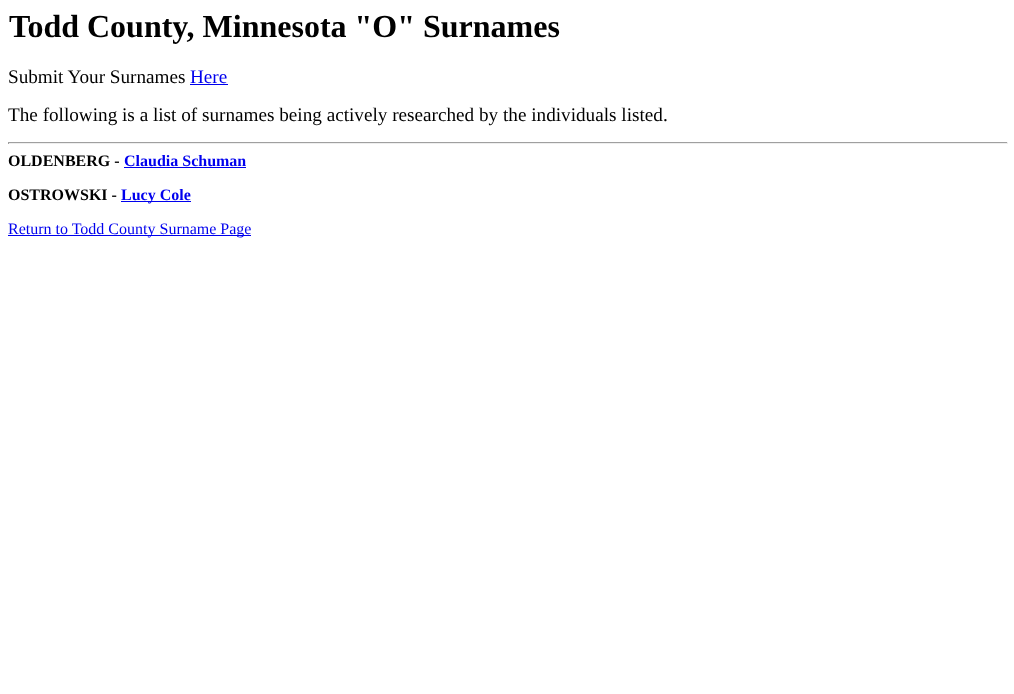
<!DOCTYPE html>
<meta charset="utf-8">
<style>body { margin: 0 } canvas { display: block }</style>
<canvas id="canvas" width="1014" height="694"></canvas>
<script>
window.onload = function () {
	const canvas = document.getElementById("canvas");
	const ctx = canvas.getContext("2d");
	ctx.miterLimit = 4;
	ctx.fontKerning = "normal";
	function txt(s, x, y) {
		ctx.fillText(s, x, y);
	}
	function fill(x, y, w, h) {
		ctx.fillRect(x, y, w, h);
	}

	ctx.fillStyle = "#FFFFFF";
	fill(0, 0, 1014, 694);
	ctx.fillStyle = "#0000EE";
	fill(190, 84, 38, 1);
	ctx.fillStyle = "#9F9F9F";
	fill(8, 142, 1000, 1);
	ctx.fillStyle = "#EEEEEE";
	fill(1007, 142, 1, 2);
	fill(8, 143, 1000, 1);
	ctx.fillStyle = "#9F9F9F";
	fill(8, 142, 1, 2);
	ctx.fillStyle = "#0000EE";
	fill(124, 167, 122, 1);
	fill(121, 201, 70, 1);
	fill(8, 235, 243, 1);
	ctx.font = "bold 32px Liberation Serif";
	ctx.fillStyle = "#000000";
	txt("Todd County, Minnesota \"O\" Surnames", 9, 37);
	ctx.font = "19.2px Liberation Serif";
	txt("Submit Your Surnames", 8, 83);
	ctx.fillStyle = "#0000EE";
	txt("Here", 190, 83);
	ctx.fillStyle = "#000000";
	txt("The following is a list of surnames being actively researched by the individuals listed.", 8, 121);
	ctx.font = "bold 16px Liberation Serif";
	txt("OLDENBERG -", 8, 166);
	ctx.fillStyle = "#0000EE";
	txt("Claudia Schuman", 124, 166);
	ctx.fillStyle = "#000000";
	txt("OSTROWSKI -", 8, 200);
	ctx.fillStyle = "#0000EE";
	txt("Lucy Cole", 121, 200);
	ctx.font = "16px Liberation Serif";
	txt("Return to Todd County Surname Page", 8, 234);
};
</script>
